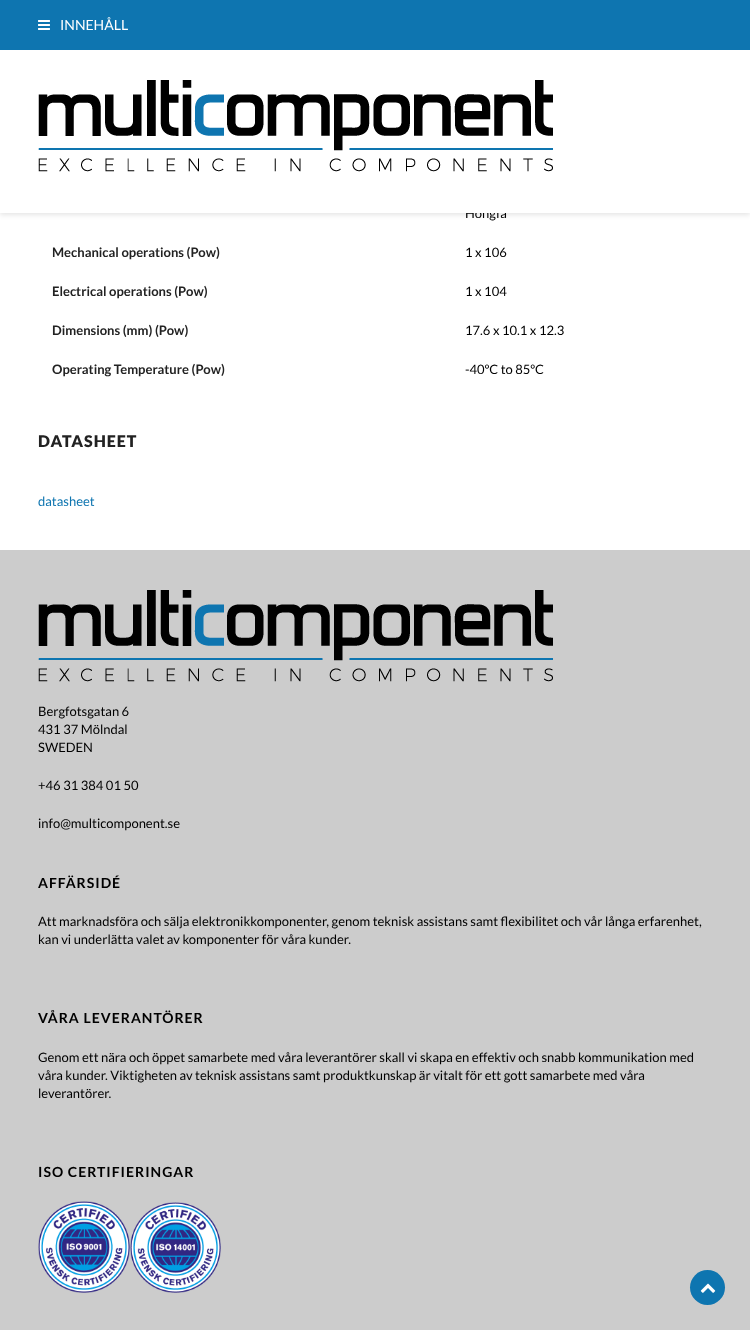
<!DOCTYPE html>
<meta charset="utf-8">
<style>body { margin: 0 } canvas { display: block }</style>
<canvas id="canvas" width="750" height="1330"></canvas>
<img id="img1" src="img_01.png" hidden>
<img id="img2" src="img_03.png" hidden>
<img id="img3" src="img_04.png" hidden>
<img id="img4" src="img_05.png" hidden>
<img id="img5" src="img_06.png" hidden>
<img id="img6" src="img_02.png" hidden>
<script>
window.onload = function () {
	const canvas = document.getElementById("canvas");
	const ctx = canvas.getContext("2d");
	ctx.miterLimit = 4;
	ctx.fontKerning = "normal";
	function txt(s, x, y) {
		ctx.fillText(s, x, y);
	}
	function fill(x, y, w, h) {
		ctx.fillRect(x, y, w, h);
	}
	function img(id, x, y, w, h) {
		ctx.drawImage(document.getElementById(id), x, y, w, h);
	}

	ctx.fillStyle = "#FFFFFF";
	fill(0, 0, 750, 1330);
	ctx.fillStyle = "rgba(0, 0, 0, 0.1)";
	ctx.filter = "blur(2.5px)";
	ctx.beginPath();
	ctx.rect(0, 52, 750, 163);
	ctx.fill();
	ctx.filter = "none";
	ctx.fillStyle = "#0E75B0";
	fill(0, 0, 750, 50);
	img("img1", 38, 20, 12, 10);
	ctx.fillStyle = "#CCCCCC";
	fill(0, 550, 750, 780);
	img("img2", 38, 590, 515, 92);
	img("img3", 38, 1201, 92, 92);
	img("img4", 130, 1202, 91, 91);
	ctx.fillStyle = "#0E75B0";
	ctx.beginPath();
	ctx.arc(707.5, 1287.5, 17.5, 0, Math.PI * 2);
	ctx.fill();
	img("img5", 700, 1283, 16, 10);
	ctx.font = "14px Lato";
	ctx.fillStyle = "#FFFFFF";
	txt("INNEHÅLL", 60, 30);
	ctx.font = "13px Lato";
	ctx.fillStyle = "#000000";
	txt("Hongfa", 465, 218);
	ctx.fillStyle = "#FFFFFF";
	fill(0, 50, 750, 163);
	img("img6", 38, 80, 515, 92);
	ctx.font = "bold 13px Lato";
	ctx.fillStyle = "#222222";
	txt("Mechanical operations (Pow)", 52, 257);
	ctx.font = "13px Lato";
	ctx.fillStyle = "#000000";
	txt("1 x 106", 465, 257);
	ctx.font = "bold 13px Lato";
	ctx.fillStyle = "#222222";
	txt("Electrical operations (Pow)", 52, 296);
	ctx.font = "13px Lato";
	ctx.fillStyle = "#000000";
	txt("1 x 104", 465, 296);
	ctx.font = "bold 13px Lato";
	ctx.fillStyle = "#222222";
	txt("Dimensions (mm) (Pow)", 52, 335);
	ctx.font = "13px Lato";
	ctx.fillStyle = "#000000";
	txt("17.6 x 10.1 x 12.3", 465, 335);
	ctx.font = "bold 13px Lato";
	ctx.fillStyle = "#222222";
	txt("Operating Temperature (Pow)", 52, 374);
	ctx.font = "13px Lato";
	ctx.fillStyle = "#000000";
	txt("-40ºC to 85ºC", 465, 374);
	ctx.letterSpacing = "1px";
	ctx.font = "900 16px Lato";
	ctx.fillStyle = "#222222";
	txt("DATASHEET", 38, 447);
	ctx.letterSpacing = "0px";
	ctx.font = "13px Lato";
	ctx.fillStyle = "#0E75B0";
	txt("datasheet", 38, 506);
	ctx.fillStyle = "#000000";
	txt("Bergfotsgatan 6", 38, 716);
	txt("431 37 Mölndal", 38, 734);
	txt("SWEDEN", 38, 752);
	txt("+46 31 384 01 50", 38, 790);
	txt("info@multicomponent.se", 38, 828);
	ctx.letterSpacing = "1px";
	ctx.font = "bold 14px Lato";
	txt("AFFÄRSIDÉ", 38, 888);
	ctx.letterSpacing = "0px";
	ctx.font = "13px Lato";
	txt("Att marknadsföra och sälja elektronikkomponenter, genom teknisk assistans samt flexibilitet och vår långa erfarenhet,", 38, 926);
	txt("kan vi underlätta valet av komponenter för våra kunder.", 38, 944);
	ctx.letterSpacing = "1px";
	ctx.font = "bold 14px Lato";
	txt("VÅRA LEVERANTÖRER", 38, 1023);
	ctx.letterSpacing = "0px";
	ctx.font = "13px Lato";
	txt("Genom ett nära och öppet samarbete med våra leverantörer skall vi skapa en effektiv och snabb kommunikation med", 38, 1062);
	txt("våra kunder. Viktigheten av teknisk assistans samt produktkunskap är vitalt för ett gott samarbete med våra", 38, 1080);
	txt("leverantörer.", 38, 1098);
	ctx.letterSpacing = "1px";
	ctx.font = "bold 14px Lato";
	txt("ISO CERTIFIERINGAR", 38, 1177);
};
</script>
